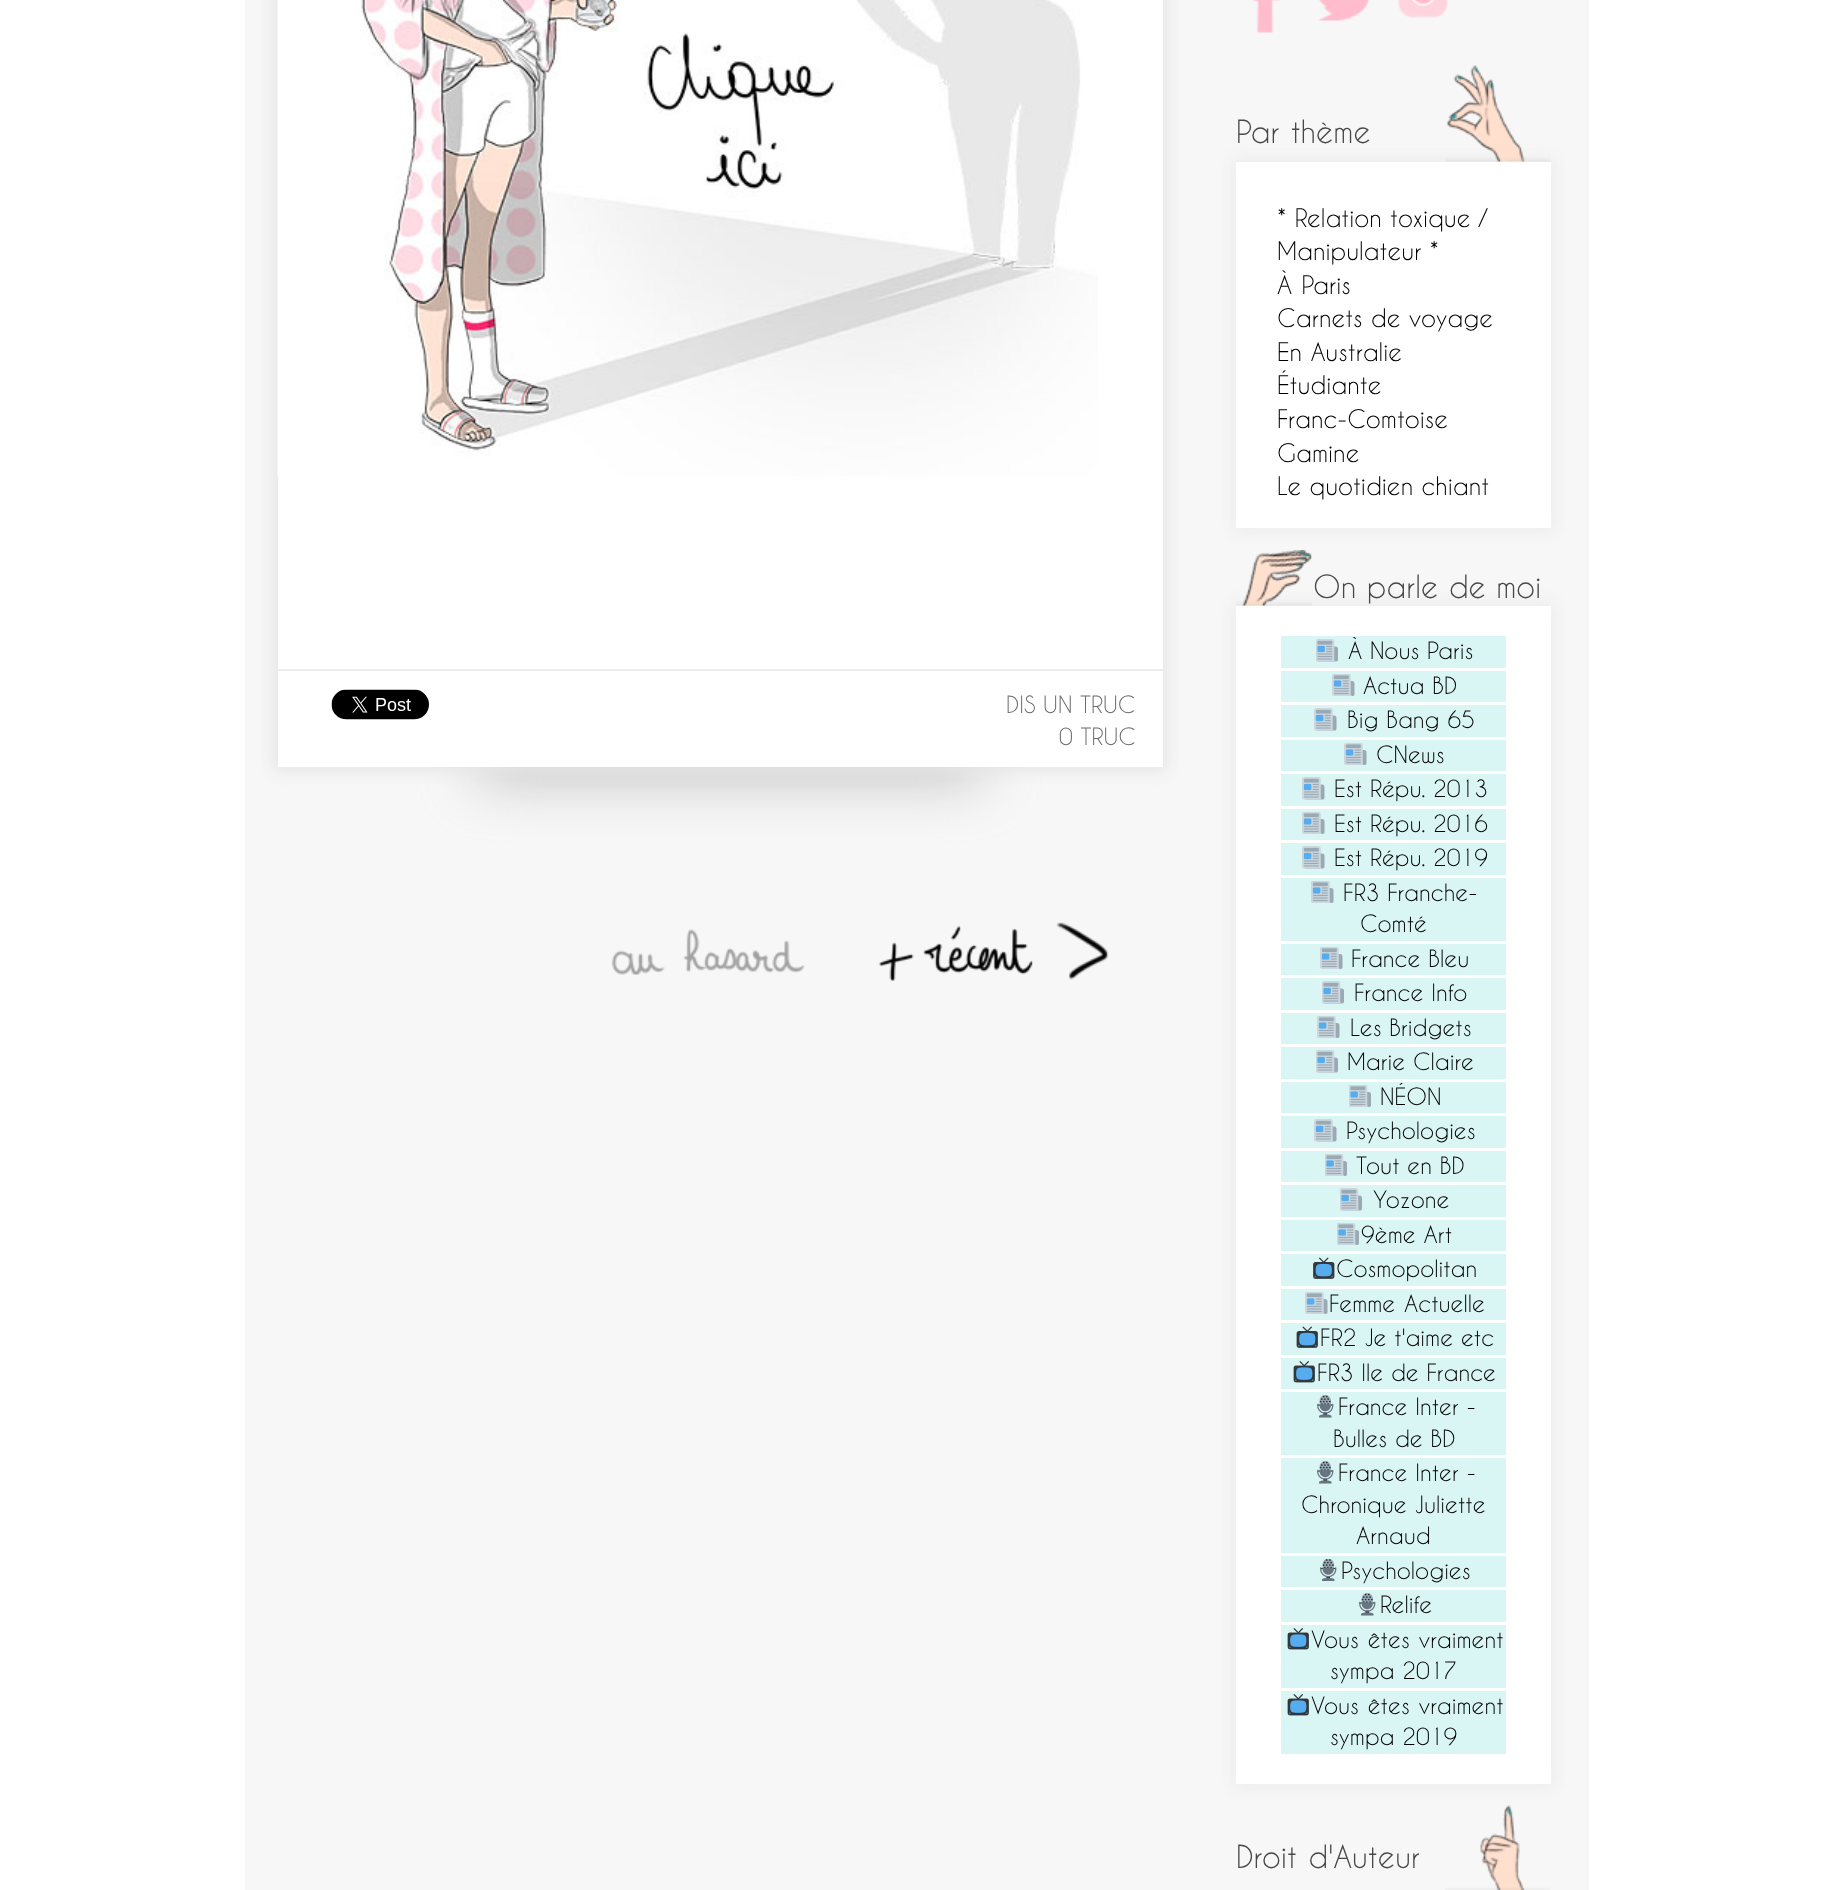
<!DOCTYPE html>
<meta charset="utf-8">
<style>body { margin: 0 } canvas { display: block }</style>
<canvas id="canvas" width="1833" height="1890"></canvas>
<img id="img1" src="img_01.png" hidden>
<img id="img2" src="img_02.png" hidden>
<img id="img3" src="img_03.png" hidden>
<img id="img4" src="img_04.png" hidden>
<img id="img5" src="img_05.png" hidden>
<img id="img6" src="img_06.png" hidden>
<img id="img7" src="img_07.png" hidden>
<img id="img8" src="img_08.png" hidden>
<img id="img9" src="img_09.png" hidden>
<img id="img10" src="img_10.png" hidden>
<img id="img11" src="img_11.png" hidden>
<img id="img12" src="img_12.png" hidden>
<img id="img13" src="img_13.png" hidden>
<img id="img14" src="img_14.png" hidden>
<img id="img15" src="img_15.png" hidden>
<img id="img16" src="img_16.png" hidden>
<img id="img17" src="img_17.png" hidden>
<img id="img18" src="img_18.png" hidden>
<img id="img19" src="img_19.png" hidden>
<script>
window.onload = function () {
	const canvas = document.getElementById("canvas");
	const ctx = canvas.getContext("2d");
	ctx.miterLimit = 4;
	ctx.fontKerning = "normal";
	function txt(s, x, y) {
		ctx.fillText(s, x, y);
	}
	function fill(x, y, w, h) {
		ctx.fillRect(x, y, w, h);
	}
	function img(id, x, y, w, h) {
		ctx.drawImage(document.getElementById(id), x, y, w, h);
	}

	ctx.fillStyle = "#FFFFFF";
	fill(0, 0, 1833, 1890);
	ctx.fillStyle = "#F7F7F7";
	fill(245, 0, 1344, 1890);
	ctx.fillStyle = "#B1B1B1";
	ctx.filter = "blur(28px)";
	ctx.beginPath();
	ctx.rect(479, 743, 501, 33);
	ctx.fill();
	ctx.filter = "none";
	ctx.fillStyle = "#E5E5E5";
	ctx.filter = "blur(7.5px)";
	ctx.beginPath();
	ctx.rect(273, -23, 894, 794);
	ctx.fill();
	ctx.filter = "none";
	ctx.fillStyle = "#FFFFFF";
	fill(278, 0, 885, 767);
	img("img1", 277, 0, 821, 476);
	ctx.fillStyle = "#EDEDED";
	fill(278, 669, 885, 2);
	img("img2", 331, 689, 98, 31);
	img("img3", 611, 929, 194, 46);
	img("img4", 878, 922, 231, 59);
	img("img5", 1252, 0, 29, 33);
	img("img6", 1318, 0, 52, 21);
	img("img7", 1398, 0, 50, 18);
	ctx.fillStyle = "#EBEBEB";
	ctx.filter = "blur(7.5px)";
	ctx.beginPath();
	ctx.rect(1233, 159, 321, 372);
	ctx.fill();
	ctx.filter = "none";
	img("img8", 1445, 65, 106, 97);
	ctx.fillStyle = "#FFFFFF";
	fill(1236, 162, 315, 366);
	ctx.fillStyle = "#EBEBEB";
	ctx.filter = "blur(7.5px)";
	ctx.beginPath();
	ctx.rect(1233, 603, 321, 1184);
	ctx.fill();
	ctx.filter = "none";
	img("img9", 1236, 550, 76, 56);
	ctx.fillStyle = "#FFFFFF";
	fill(1236, 606, 315, 1178);
	ctx.fillStyle = "#D9F5F4";
	fill(1281, 636, 225, 32);
	img("img10", 1316, 639, 22, 23);
	fill(1281, 671, 225, 31);
	img("img11", 1332, 674, 23, 22);
	fill(1281, 705, 225, 32);
	img("img12", 1314, 708, 23, 23);
	fill(1281, 740, 225, 31);
	img("img11", 1344, 743, 23, 22);
	fill(1281, 774, 225, 32);
	img("img12", 1302, 777, 23, 23);
	fill(1281, 809, 225, 31);
	img("img11", 1302, 812, 23, 22);
	fill(1281, 843, 225, 32);
	img("img12", 1302, 846, 23, 23);
	fill(1281, 878, 225, 63);
	img("img11", 1311, 881, 23, 22);
	fill(1281, 944, 225, 31);
	img("img11", 1320, 947, 23, 22);
	fill(1281, 978, 225, 32);
	img("img10", 1322, 981, 22, 23);
	fill(1281, 1013, 225, 31);
	img("img11", 1317, 1016, 23, 22);
	fill(1281, 1047, 225, 32);
	img("img10", 1316, 1050, 22, 23);
	fill(1281, 1082, 225, 31);
	img("img13", 1349, 1085, 22, 22);
	fill(1281, 1116, 225, 32);
	img("img12", 1314, 1119, 23, 23);
	fill(1281, 1151, 225, 31);
	img("img13", 1325, 1154, 22, 22);
	fill(1281, 1185, 225, 32);
	img("img10", 1340, 1188, 22, 23);
	fill(1281, 1220, 225, 31);
	img("img13", 1337, 1223, 22, 22);
	fill(1281, 1254, 225, 32);
	img("img14", 1313, 1257, 22, 22);
	fill(1281, 1289, 225, 31);
	img("img11", 1305, 1292, 23, 22);
	fill(1281, 1323, 225, 32);
	img("img15", 1296, 1326, 22, 22);
	fill(1281, 1358, 225, 31);
	img("img16", 1293, 1361, 22, 22);
	fill(1281, 1392, 225, 63);
	img("img17", 1317, 1395, 17, 23);
	fill(1281, 1458, 225, 95);
	img("img17", 1317, 1461, 17, 23);
	fill(1281, 1556, 225, 31);
	img("img18", 1320, 1559, 17, 22);
	fill(1281, 1590, 225, 32);
	img("img17", 1359, 1593, 17, 23);
	fill(1281, 1625, 225, 63);
	img("img16", 1287, 1628, 22, 22);
	fill(1281, 1691, 225, 63);
	img("img16", 1287, 1694, 22, 22);
	img("img19", 1445, 1805, 105, 85);
	ctx.font = "22.5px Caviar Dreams";
	ctx.fillStyle = "#6B6B6B";
	txt("DIS UN TRUC", 1006, 713);
	txt("0 TRUC", 1059, 745);
	ctx.wordSpacing = "1px";
	ctx.font = "30px Caviar Dreams";
	ctx.fillStyle = "#484848";
	txt("Par thème", 1236, 143);
	ctx.wordSpacing = "0px";
	ctx.font = "24px Caviar Dreams";
	ctx.fillStyle = "#000000";
	txt("* Relation toxique /", 1277, 227);
	txt("Manipulateur *", 1277, 260);
	ctx.wordSpacing = "1px";
	txt("À Paris", 1277, 294);
	ctx.wordSpacing = "0px";
	txt("Carnets de voyage", 1277, 327);
	txt("En Australie", 1277, 361);
	txt("Étudiante", 1277, 394);
	txt("Franc-Comtoise", 1277, 428);
	txt("Gamine", 1277, 462);
	txt("Le quotidien chiant", 1277, 495);
	ctx.font = "30px Caviar Dreams";
	ctx.fillStyle = "#484848";
	txt("On parle de moi", 1313, 598);
	ctx.font = "22.5px Caviar Dreams";
	ctx.fillStyle = "#000000";
	txt("À Nous Paris", 1348, 659);
	txt("Actua BD", 1363, 694);
	txt("Big Bang 65", 1347, 728);
	txt("CNews", 1376, 763);
	txt("Est Répu. 2013", 1334, 797);
	txt("Est Répu. 2016", 1334, 832);
	txt("Est Répu. 2019", 1334, 866);
	txt("FR3 Franche-", 1343, 901);
	txt("Comté", 1360, 932);
	txt("France Bleu", 1351, 967);
	txt("France Info", 1354, 1001);
	txt("Les Bridgets", 1350, 1036);
	txt("Marie Claire", 1347, 1070);
	txt("NÉON", 1380, 1105);
	txt("Psychologies", 1346, 1139);
	txt("Tout en BD", 1356, 1174);
	txt("Yozone", 1373, 1208);
	txt("9ème Art", 1361, 1243);
	txt("Cosmopolitan", 1336, 1277);
	ctx.wordSpacing = "1px";
	txt("Femme Actuelle", 1329, 1312);
	ctx.wordSpacing = "0px";
	txt("FR2 Je t'aime etc", 1320, 1346);
	txt("FR3 Ile de France", 1317, 1381);
	txt("France Inter -", 1338, 1415);
	txt("Bulles de BD", 1333, 1447);
	txt("France Inter -", 1338, 1481);
	txt("Chronique Juliette", 1301, 1513);
	txt("Arnaud", 1356, 1544);
	txt("Psychologies", 1341, 1579);
	txt("Relife", 1380, 1613);
	ctx.wordSpacing = "1px";
	txt("Vous êtes vraiment", 1311, 1648);
	ctx.wordSpacing = "0px";
	txt("sympa 2017", 1330, 1679);
	ctx.wordSpacing = "1px";
	txt("Vous êtes vraiment", 1311, 1714);
	ctx.wordSpacing = "0px";
	txt("sympa 2019", 1330, 1745);
	ctx.wordSpacing = "1px";
	ctx.font = "30px Caviar Dreams";
	ctx.fillStyle = "#484848";
	txt("Droit d'Auteur", 1236, 1868);
};
</script>
